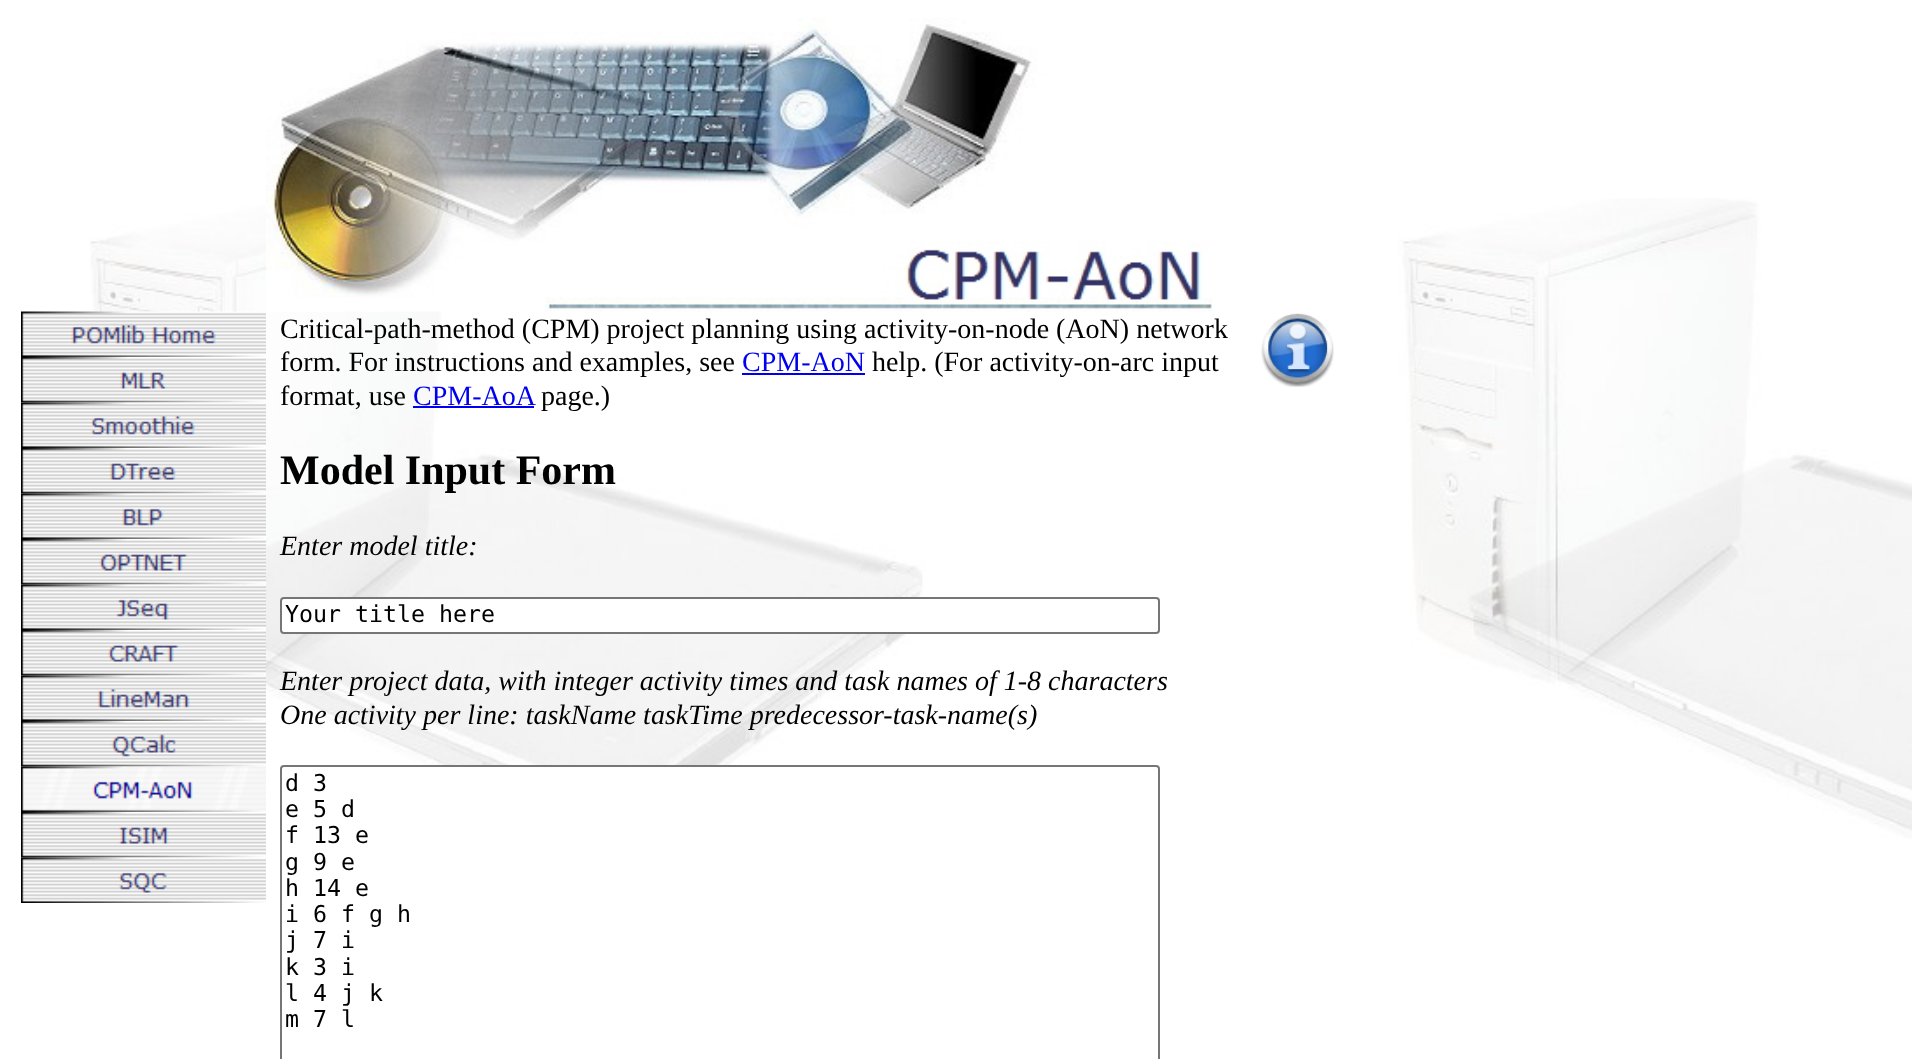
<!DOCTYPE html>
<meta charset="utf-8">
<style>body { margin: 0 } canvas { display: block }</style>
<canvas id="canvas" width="1912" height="1059"></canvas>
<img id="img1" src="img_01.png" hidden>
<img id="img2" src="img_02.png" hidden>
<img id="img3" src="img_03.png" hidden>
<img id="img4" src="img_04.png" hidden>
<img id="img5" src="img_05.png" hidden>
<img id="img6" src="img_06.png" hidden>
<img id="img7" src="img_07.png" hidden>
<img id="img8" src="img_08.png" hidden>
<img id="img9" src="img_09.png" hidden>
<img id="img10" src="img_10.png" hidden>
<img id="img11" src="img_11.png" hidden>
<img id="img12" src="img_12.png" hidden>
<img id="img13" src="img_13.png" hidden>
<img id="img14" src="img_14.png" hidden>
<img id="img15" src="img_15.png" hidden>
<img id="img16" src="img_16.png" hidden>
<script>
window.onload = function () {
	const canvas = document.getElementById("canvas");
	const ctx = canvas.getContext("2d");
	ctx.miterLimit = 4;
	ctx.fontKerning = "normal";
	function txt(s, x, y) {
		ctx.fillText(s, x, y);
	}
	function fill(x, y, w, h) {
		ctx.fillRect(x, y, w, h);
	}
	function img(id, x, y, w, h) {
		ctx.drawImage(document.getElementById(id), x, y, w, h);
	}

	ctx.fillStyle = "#FFFFFF";
	fill(0, 0, 1912, 1059);
	img("img1", 90, 198, 1822, 645);
	img("img2", 21, 311, 245, 46);
	img("img3", 21, 357, 245, 46);
	img("img4", 21, 402, 245, 46);
	img("img5", 21, 448, 245, 46);
	img("img6", 21, 493, 245, 46);
	img("img7", 21, 539, 245, 46);
	img("img8", 21, 584, 245, 46);
	img("img9", 21, 630, 245, 46);
	img("img10", 21, 675, 245, 46);
	img("img11", 21, 721, 245, 46);
	img("img12", 21, 766, 245, 46);
	img("img13", 21, 812, 245, 46);
	img("img14", 21, 857, 245, 46);
	img("img15", 266, 18, 947, 294);
	ctx.fillStyle = "#0000EE";
	fill(742, 373, 123, 2);
	fill(413, 406, 121, 2);
	ctx.fillStyle = "#FFFFFF";
	ctx.beginPath();
	ctx.roundRect(281, 598, 878, 35, 3);
	ctx.fill();
	ctx.strokeStyle = "#767676";
	ctx.lineWidth = 2;
	ctx.stroke();
	ctx.beginPath();
	ctx.roundRect(281, 766, 878, 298, 3);
	ctx.fill();
	ctx.stroke();
	img("img16", 1261, 313, 73, 74);
	ctx.font = "28px Liberation Serif";
	ctx.fillStyle = "#000000";
	txt("Critical-path-method (CPM) project planning using activity-on-node (AoN) network", 280, 338);
	txt("form. For instructions and examples, see", 280, 371);
	ctx.fillStyle = "#0000EE";
	txt("CPM-AoN", 742, 371);
	ctx.fillStyle = "#000000";
	txt("help. (For activity-on-arc input", 872, 371);
	txt("format, use", 280, 405);
	ctx.fillStyle = "#0000EE";
	txt("CPM-AoA", 413, 405);
	ctx.fillStyle = "#000000";
	txt("page.)", 541, 405);
	ctx.font = "bold 42px Liberation Serif";
	txt("Model Input Form", 280, 484);
	ctx.font = "italic 28px Liberation Serif";
	txt("Enter model title:", 280, 555);
	ctx.font = "23.25px DejaVu Sans Mono";
	txt("Your title here", 285, 622);
	ctx.font = "italic 28px Liberation Serif";
	txt("Enter project data, with integer activity times and task names of 1-8 characters", 280, 690);
	txt("One activity per line: taskName taskTime predecessor-task-name(s)", 280, 724);
	ctx.font = "23.25px DejaVu Sans Mono";
	txt("d 3", 285, 791);
	txt("e 5 d", 285, 817);
	txt("f 13 e", 285, 843);
	txt("g 9 e", 285, 870);
	txt("h 14 e", 285, 896);
	txt("i 6 f g h", 285, 922);
	txt("j 7 i", 285, 948);
	txt("k 3 i", 285, 975);
	txt("l 4 j k", 285, 1001);
	txt("m 7 l", 285, 1027);
};
</script>
